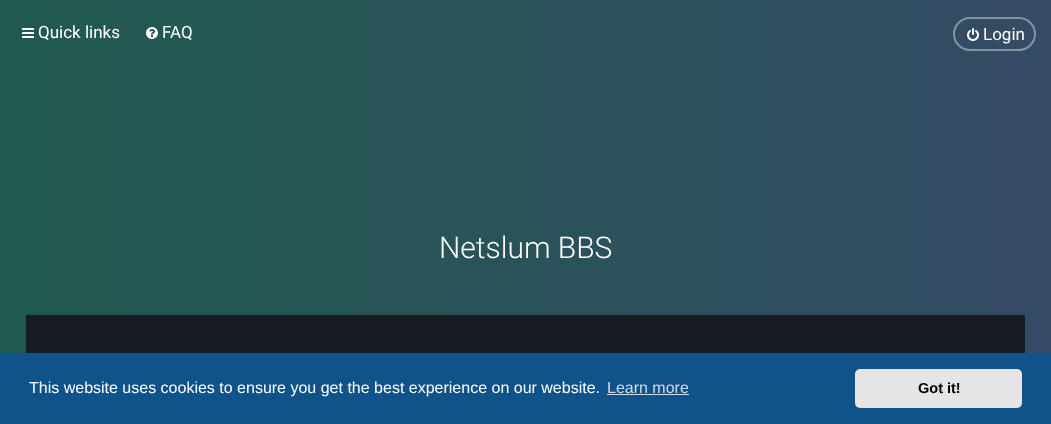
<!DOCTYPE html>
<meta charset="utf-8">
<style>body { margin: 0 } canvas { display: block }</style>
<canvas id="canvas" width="1051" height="424"></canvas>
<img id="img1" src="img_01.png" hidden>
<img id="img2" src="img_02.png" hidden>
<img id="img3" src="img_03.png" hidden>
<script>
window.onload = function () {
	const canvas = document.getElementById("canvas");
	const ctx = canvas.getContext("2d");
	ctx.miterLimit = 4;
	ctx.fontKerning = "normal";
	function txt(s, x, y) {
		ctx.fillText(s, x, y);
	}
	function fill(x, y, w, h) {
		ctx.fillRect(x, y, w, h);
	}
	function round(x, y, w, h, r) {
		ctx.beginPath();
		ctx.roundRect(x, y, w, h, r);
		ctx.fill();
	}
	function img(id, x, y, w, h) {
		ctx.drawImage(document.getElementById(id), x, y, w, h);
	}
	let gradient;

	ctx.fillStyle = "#FFFFFF";
	fill(0, 0, 1051, 424);
	gradient = ctx.createLinearGradient(0, 183, 1051, 182);
	gradient.addColorStop(0, "#205A4E");
	gradient.addColorStop(1, "#344B65");
	ctx.fillStyle = gradient;
	fill(0, 0, 1051, 353);
	img("img1", 22, 28, 12, 10);
	img("img2", 146, 27, 12, 12);
	ctx.beginPath();
	ctx.roundRect(954, 18, 81, 32, 16);
	ctx.strokeStyle = "#8594A2";
	ctx.lineWidth = 2;
	ctx.stroke();
	img("img3", 967, 28, 12, 13);
	ctx.fillStyle = "rgba(0, 0, 0, 0.05)";
	ctx.filter = "blur(2.5px)";
	ctx.beginPath();
	ctx.rect(26, 315, 999, 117);
	ctx.fill();
	ctx.filter = "none";
	ctx.fillStyle = "#171B24";
	fill(26, 315, 999, 38);
	ctx.fillStyle = "#0F538A";
	fill(0, 353, 1051, 71);
	ctx.fillStyle = "#CFDDE8";
	fill(607, 394, 82, 1);
	ctx.fillStyle = "#E5E5E5";
	round(855, 369, 167, 39, 5);
	ctx.font = "17px Roboto";
	ctx.fillStyle = "#FFFFFF";
	txt("Quick links", 38, 38);
	txt("FAQ", 162, 38);
	txt("Login", 983, 40);
	ctx.font = "300 30px Roboto";
	txt("Netslum BBS", 439, 258);
	ctx.font = "16px Liberation Sans";
	txt("This website uses cookies to ensure you get the best experience on our website.", 29, 393);
	ctx.fillStyle = "#CFDDE8";
	txt("Learn more", 607, 393);
	ctx.font = "bold 14.5px Liberation Sans";
	ctx.fillStyle = "#000000";
	txt("Got it!", 918, 393);
};
</script>
